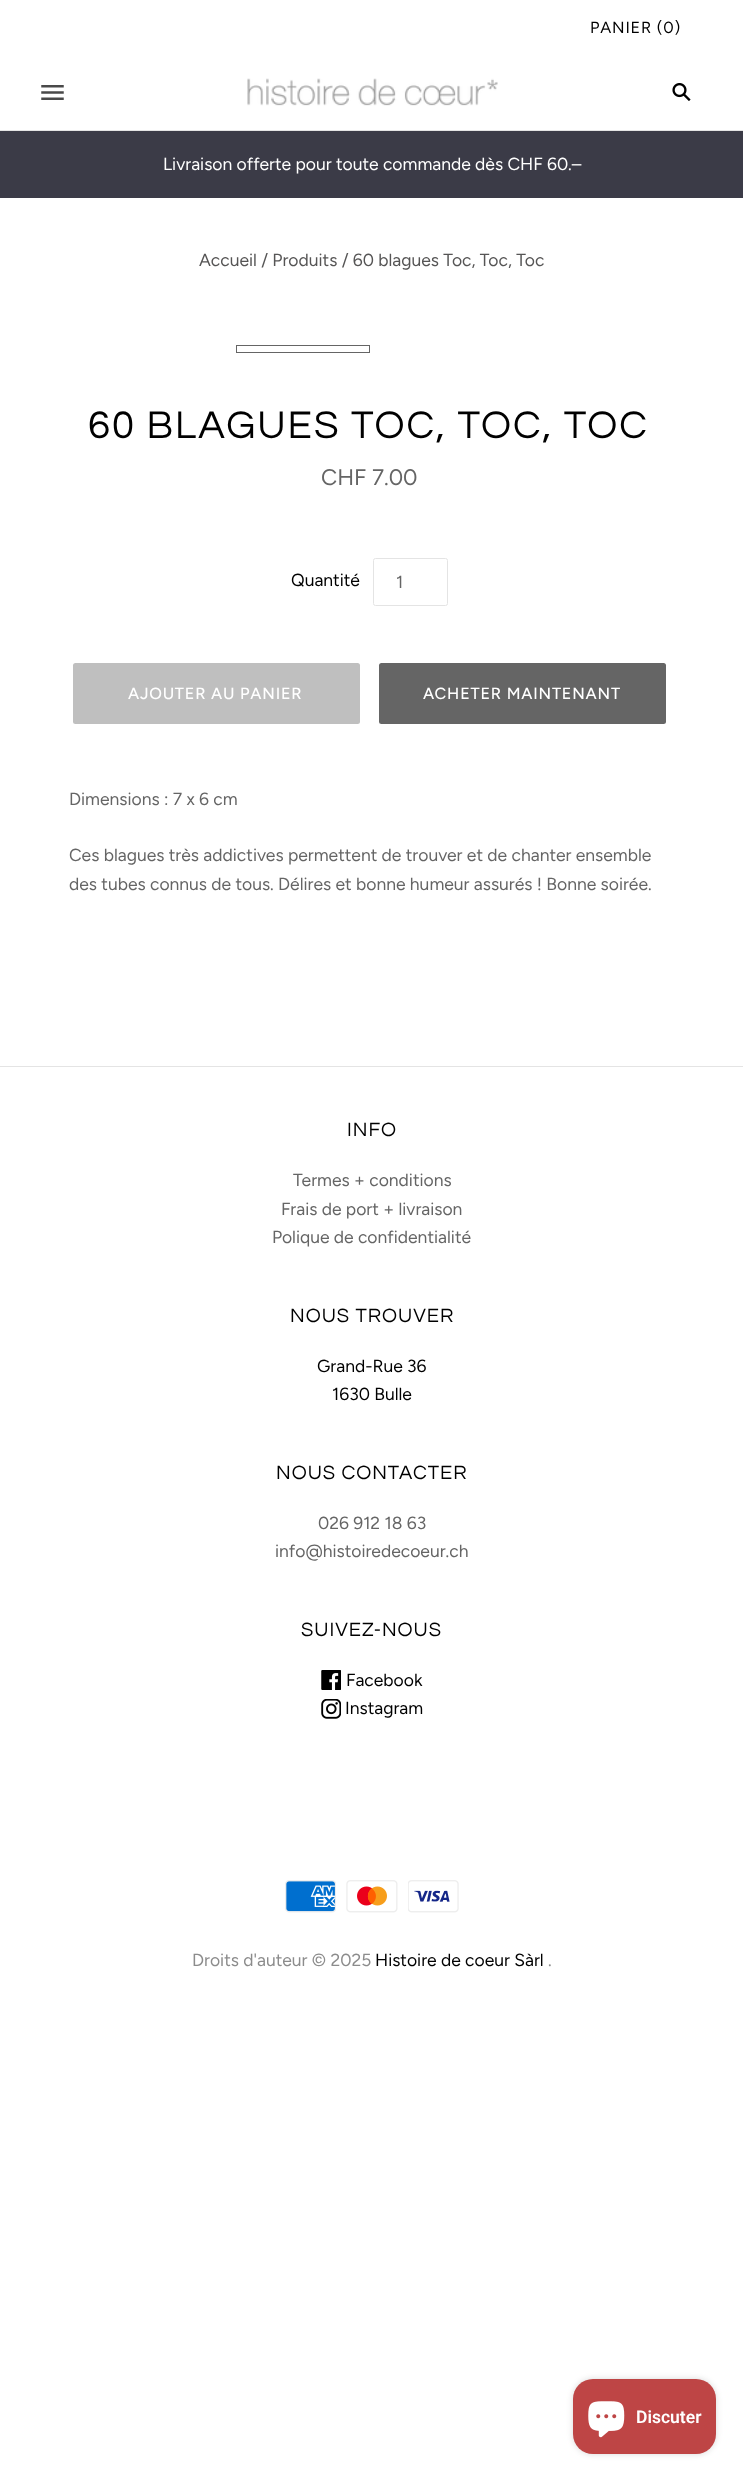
<!DOCTYPE html>
<meta charset="utf-8">
<style>body { margin: 0 } canvas { display: block }</style>
<canvas id="canvas" width="743" height="2479"></canvas>
<img id="img1" src="img_01.png" hidden>
<img id="img2" src="img_02.png" hidden>
<img id="img3" src="img_03.png" hidden>
<img id="img4" src="img_04.png" hidden>
<img id="img5" src="img_05.png" hidden>
<img id="img6" src="img_06.png" hidden>
<img id="img7" src="img_07.png" hidden>
<img id="img8" src="img_08.png" hidden>
<img id="img9" src="img_09.png" hidden>
<script>
window.onload = function () {
	const canvas = document.getElementById("canvas");
	const ctx = canvas.getContext("2d");
	ctx.miterLimit = 4;
	ctx.fontKerning = "normal";
	function txt(s, x, y) {
		ctx.fillText(s, x, y);
	}
	function fill(x, y, w, h) {
		ctx.fillRect(x, y, w, h);
	}
	function round(x, y, w, h, r) {
		ctx.beginPath();
		ctx.roundRect(x, y, w, h, r);
		ctx.fill();
	}
	function img(id, x, y, w, h) {
		ctx.drawImage(document.getElementById(id), x, y, w, h);
	}

	ctx.fillStyle = "#FFFFFF";
	fill(0, 0, 743, 2479);
	ctx.fillStyle = "#E4E4E4";
	fill(0, 130, 743, 1);
	img("img1", 41, 85, 23, 15);
	img("img2", 247, 78, 251, 28);
	img("img3", 672, 83, 19, 18);
	ctx.fillStyle = "#3B3B47";
	fill(0, 131, 743, 67);
	ctx.strokeStyle = "#656565";
	ctx.strokeRect(236.5, 345.5, 133, 7);
	ctx.beginPath();
	ctx.roundRect(373.5, 558.5, 74, 47, 2);
	ctx.strokeStyle = "#E4E4E4";
	ctx.stroke();
	ctx.fillStyle = "#BFBFBF";
	round(73, 663, 287, 61, 2.5);
	ctx.fillStyle = "#656565";
	round(379, 663, 287, 61, 2.5);
	ctx.fillStyle = "#E4E4E4";
	fill(0, 1066, 743, 1);
	img("img4", 321, 1670, 20, 20);
	img("img5", 321, 1699, 20, 20);
	img("img6", 285, 1880, 51, 33);
	img("img7", 346, 1880, 52, 33);
	img("img8", 408, 1880, 51, 33);
	ctx.fillStyle = "rgba(0, 0, 0, 0.15)";
	ctx.filter = "blur(3px)";
	ctx.beginPath();
	ctx.roundRect(573, 2379, 143, 75, 20);
	ctx.fill();
	ctx.filter = "none";
	ctx.fillStyle = "#BE4545";
	round(573, 2379, 143, 75, 20);
	img("img9", 588, 2401, 37, 37);
	ctx.letterSpacing = "0.8px";
	ctx.font = "16.25px Figtree";
	ctx.fillStyle = "#000000";
	txt("PANIER (0)", 590, 33);
	ctx.letterSpacing = "0px";
	ctx.font = "17.5px Figtree";
	ctx.fillStyle = "#FFFFFF";
	txt("Livraison offerte pour toute commande dès CHF 60.–", 163, 170);
	ctx.fillStyle = "#565555";
	txt("Accueil / Produits / 60 blagues Toc, Toc, Toc", 199, 266);
	ctx.letterSpacing = "2px";
	ctx.font = "40px Questrial";
	ctx.fillStyle = "#000000";
	txt("60 BLAGUES TOC, TOC, TOC", 88, 438);
	ctx.letterSpacing = "0px";
	ctx.font = "22.5px Figtree";
	ctx.fillStyle = "#656565";
	txt("CHF 7.00", 321, 485);
	ctx.font = "17.5px Figtree";
	ctx.fillStyle = "#000000";
	txt("Quantité", 291, 586);
	ctx.fillStyle = "#656565";
	txt("1", 396, 588);
	ctx.letterSpacing = "0.8px";
	ctx.font = "500 16.25px Figtree";
	ctx.fillStyle = "#FFFFFF";
	txt("AJOUTER AU PANIER", 128, 699);
	txt("ACHETER MAINTENANT", 423, 699);
	ctx.letterSpacing = "0px";
	ctx.font = "17.5px Figtree";
	ctx.fillStyle = "#656565";
	txt("Dimensions : 7 x 6 cm", 69, 805);
	txt("Ces blagues très addictives permettent de trouver et de chanter ensemble", 69, 861);
	txt("des tubes connus de tous. Délires et bonne humeur assurés ! Bonne soirée.", 69, 890);
	ctx.letterSpacing = "1px";
	ctx.font = "20px Questrial";
	ctx.fillStyle = "#000000";
	txt("INFO", 347, 1136);
	ctx.letterSpacing = "0px";
	ctx.font = "17.5px Figtree";
	ctx.fillStyle = "#656565";
	txt("Termes + conditions", 293, 1186);
	txt("Frais de port + livraison", 281, 1215);
	txt("Polique de confidentialité", 272, 1243);
	ctx.letterSpacing = "1px";
	ctx.font = "20px Questrial";
	ctx.fillStyle = "#000000";
	txt("NOUS TROUVER", 290, 1322);
	ctx.letterSpacing = "0px";
	ctx.font = "17.5px Figtree";
	txt("Grand-Rue 36", 317, 1372);
	txt("1630 Bulle", 332, 1400);
	ctx.letterSpacing = "1px";
	ctx.font = "20px Questrial";
	txt("NOUS CONTACTER", 276, 1479);
	ctx.letterSpacing = "0px";
	ctx.font = "17.5px Figtree";
	ctx.fillStyle = "#656565";
	txt("026 912 18 63", 318, 1529);
	txt("info@histoiredecoeur.ch", 275, 1557);
	ctx.letterSpacing = "1px";
	ctx.font = "20px Questrial";
	ctx.fillStyle = "#000000";
	txt("SUIVEZ-NOUS", 301, 1636);
	ctx.letterSpacing = "0px";
	ctx.font = "17.5px Figtree";
	txt("Facebook", 346, 1686);
	txt("Instagram", 345, 1714);
	ctx.fillStyle = "#8C8C8C";
	txt("Droits d'auteur © 2025", 192, 1966);
	ctx.fillStyle = "#000000";
	txt("Histoire de coeur Sàrl", 375, 1966);
	ctx.fillStyle = "#8C8C8C";
	txt(".", 548, 1966);
	ctx.font = "600 17.5px Roboto";
	ctx.fillStyle = "#FFFFFF";
	txt("Discuter", 636, 2423);
};
</script>
